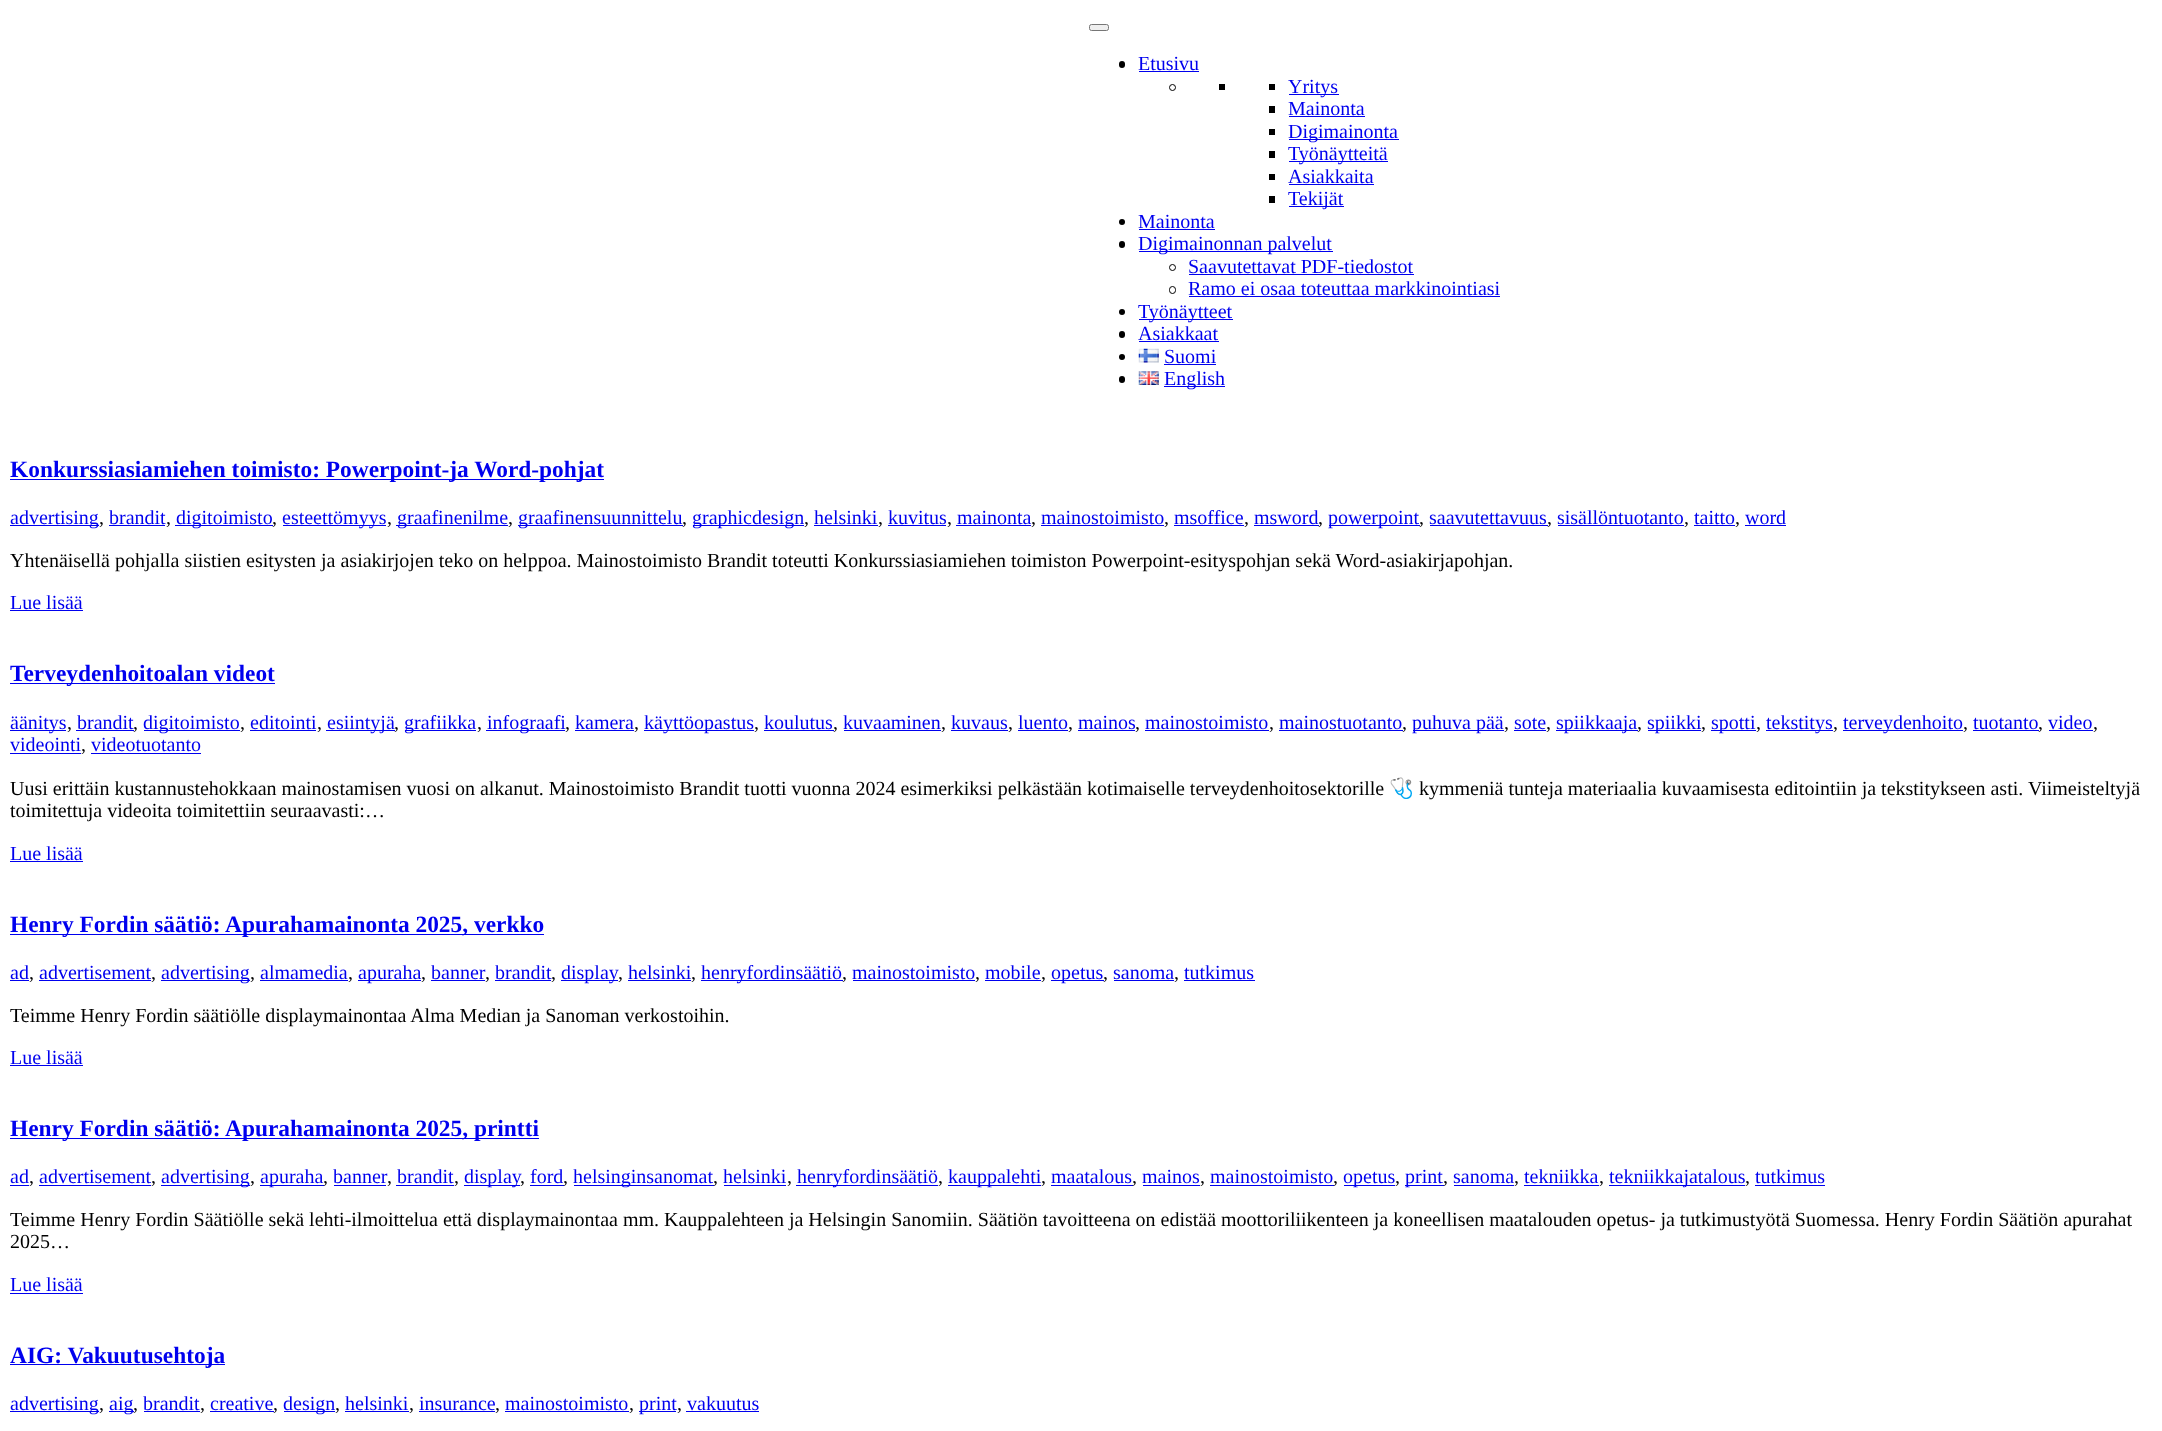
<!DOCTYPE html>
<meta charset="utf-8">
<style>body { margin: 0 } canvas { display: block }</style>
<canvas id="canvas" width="2162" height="1431"></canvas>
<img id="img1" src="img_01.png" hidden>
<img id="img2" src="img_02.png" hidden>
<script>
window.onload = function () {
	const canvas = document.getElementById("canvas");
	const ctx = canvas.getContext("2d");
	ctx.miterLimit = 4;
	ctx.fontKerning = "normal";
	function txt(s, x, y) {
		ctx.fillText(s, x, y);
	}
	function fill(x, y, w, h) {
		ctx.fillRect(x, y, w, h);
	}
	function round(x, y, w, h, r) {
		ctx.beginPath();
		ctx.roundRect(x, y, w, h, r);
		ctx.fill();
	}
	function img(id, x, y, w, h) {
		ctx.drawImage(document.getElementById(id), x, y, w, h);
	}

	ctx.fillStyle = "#FFFFFF";
	fill(0, 0, 2162, 1431);
	ctx.fillStyle = "#EFEFEF";
	ctx.beginPath();
	ctx.roundRect(1089.5, 24.5, 19, 6, 2);
	ctx.fill();
	ctx.strokeStyle = "#767676";
	ctx.stroke();
	ctx.fillStyle = "#000000";
	round(1119, 61, 6, 7, 3);
	ctx.fillStyle = "#0000EE";
	fill(1139, 71, 60, 1);
	ctx.beginPath();
	ctx.arc(1172.5, 87.5, 3, 0, Math.PI * 2);
	ctx.strokeStyle = "#000000";
	ctx.stroke();
	ctx.fillStyle = "#000000";
	fill(1219, 84, 6, 6);
	fill(1269, 84, 6, 6);
	ctx.fillStyle = "#0000EE";
	fill(1289, 94, 50, 1);
	ctx.fillStyle = "#000000";
	fill(1269, 106, 6, 7);
	ctx.fillStyle = "#0000EE";
	fill(1289, 116, 76, 1);
	ctx.fillStyle = "#000000";
	fill(1269, 129, 6, 6);
	ctx.fillStyle = "#0000EE";
	fill(1289, 139, 110, 1);
	ctx.fillStyle = "#000000";
	fill(1269, 151, 6, 7);
	ctx.fillStyle = "#0000EE";
	fill(1289, 161, 99, 1);
	ctx.fillStyle = "#000000";
	fill(1269, 174, 6, 6);
	ctx.fillStyle = "#0000EE";
	fill(1289, 184, 85, 1);
	ctx.fillStyle = "#000000";
	fill(1269, 196, 6, 7);
	ctx.fillStyle = "#0000EE";
	fill(1289, 206, 55, 1);
	ctx.fillStyle = "#000000";
	ctx.beginPath();
	ctx.arc(1122, 222, 3, 0, Math.PI * 2);
	ctx.fill();
	ctx.fillStyle = "#0000EE";
	fill(1139, 229, 76, 1);
	ctx.fillStyle = "#000000";
	round(1119, 241, 6, 7, 3);
	ctx.fillStyle = "#0000EE";
	fill(1139, 251, 194, 1);
	ctx.beginPath();
	ctx.arc(1172.5, 267.5, 3, 0, Math.PI * 2);
	ctx.stroke();
	fill(1189, 274, 225, 1);
	ctx.beginPath();
	ctx.roundRect(1169.5, 286.5, 6, 7, 3);
	ctx.stroke();
	fill(1189, 296, 311, 1);
	ctx.fillStyle = "#000000";
	ctx.beginPath();
	ctx.arc(1122, 312, 3, 0, Math.PI * 2);
	ctx.fill();
	ctx.fillStyle = "#0000EE";
	fill(1139, 319, 94, 1);
	ctx.fillStyle = "#000000";
	round(1119, 331, 6, 7, 3);
	ctx.fillStyle = "#0000EE";
	fill(1139, 341, 80, 1);
	ctx.fillStyle = "#000000";
	ctx.beginPath();
	ctx.arc(1122, 357, 3, 0, Math.PI * 2);
	ctx.fill();
	img("img1", 1138, 348, 21, 15);
	ctx.fillStyle = "#0000EE";
	fill(1164, 364, 52, 1);
	ctx.fillStyle = "#000000";
	round(1119, 376, 6, 7, 3);
	img("img2", 1138, 371, 21, 14);
	ctx.fillStyle = "#0000EE";
	fill(1164, 386, 61, 1);
	fill(10, 479, 594, 1);
	fill(10, 525, 89, 1);
	fill(109, 525, 56, 1);
	fill(175, 525, 98, 1);
	fill(283, 525, 103, 1);
	fill(396, 525, 112, 1);
	fill(518, 525, 165, 1);
	fill(693, 525, 111, 1);
	fill(814, 525, 64, 1);
	fill(888, 525, 58, 1);
	fill(956, 525, 75, 1);
	fill(1041, 525, 123, 1);
	fill(1174, 525, 70, 1);
	fill(1254, 525, 65, 1);
	fill(1329, 525, 91, 1);
	fill(1430, 525, 118, 1);
	fill(1558, 525, 126, 1);
	fill(1694, 525, 41, 1);
	fill(1745, 525, 41, 1);
	fill(10, 610, 73, 1);
	fill(10, 683, 265, 1);
	fill(10, 730, 56, 1);
	fill(76, 730, 58, 1);
	fill(144, 730, 96, 1);
	fill(250, 730, 66, 1);
	fill(326, 730, 69, 1);
	fill(405, 730, 71, 1);
	fill(486, 730, 79, 1);
	fill(575, 730, 59, 1);
	fill(644, 730, 110, 1);
	fill(764, 730, 70, 1);
	fill(844, 730, 97, 1);
	fill(951, 730, 57, 1);
	fill(1018, 730, 50, 1);
	fill(1078, 730, 57, 1);
	fill(1145, 730, 124, 1);
	fill(1279, 730, 124, 1);
	fill(1413, 730, 91, 1);
	fill(1514, 730, 32, 1);
	fill(1556, 730, 82, 1);
	fill(1648, 730, 53, 1);
	fill(1711, 730, 45, 1);
	fill(1766, 730, 67, 1);
	fill(1843, 730, 120, 1);
	fill(1973, 730, 66, 1);
	fill(2049, 730, 44, 1);
	fill(10, 753, 71, 1);
	fill(91, 753, 110, 1);
	fill(10, 861, 73, 1);
	fill(10, 934, 534, 1);
	fill(10, 980, 19, 1);
	fill(39, 980, 112, 1);
	fill(161, 980, 89, 1);
	fill(260, 980, 88, 1);
	fill(358, 980, 63, 1);
	fill(431, 980, 54, 1);
	fill(495, 980, 56, 1);
	fill(561, 980, 57, 1);
	fill(628, 980, 63, 1);
	fill(701, 980, 142, 1);
	fill(853, 980, 122, 1);
	fill(985, 980, 56, 1);
	fill(1051, 980, 53, 1);
	fill(1114, 980, 60, 1);
	fill(1184, 980, 71, 1);
	fill(10, 1065, 73, 1);
	fill(10, 1138, 529, 1);
	fill(10, 1185, 19, 1);
	fill(39, 1185, 112, 1);
	fill(161, 1185, 89, 1);
	fill(260, 1185, 64, 1);
	fill(334, 1185, 52, 1);
	fill(396, 1185, 58, 1);
	fill(464, 1185, 56, 1);
	fill(530, 1185, 34, 1);
	fill(574, 1185, 140, 1);
	fill(724, 1185, 62, 1);
	fill(796, 1185, 142, 1);
	fill(948, 1185, 93, 1);
	fill(1051, 1185, 82, 1);
	fill(1143, 1185, 57, 1);
	fill(1210, 1185, 124, 1);
	fill(1344, 1185, 51, 1);
	fill(1405, 1185, 39, 1);
	fill(1454, 1185, 60, 1);
	fill(1524, 1185, 75, 1);
	fill(1609, 1185, 136, 1);
	fill(1755, 1185, 70, 1);
	fill(10, 1293, 73, 1);
	fill(10, 1364, 215, 1);
	fill(10, 1411, 89, 1);
	fill(109, 1411, 25, 1);
	fill(144, 1411, 56, 1);
	fill(210, 1411, 64, 1);
	fill(284, 1411, 51, 1);
	fill(345, 1411, 64, 1);
	fill(419, 1411, 76, 1);
	fill(505, 1411, 124, 1);
	fill(639, 1411, 37, 1);
	fill(686, 1411, 73, 1);
	ctx.font = "20px Liberation Serif";
	txt("Etusivu", 1138, 70);
	txt("Yritys", 1288, 93);
	txt("Mainonta", 1288, 115);
	txt("Digimainonta", 1288, 138);
	txt("Työnäytteitä", 1288, 160);
	txt("Asiakkaita", 1288, 183);
	txt("Tekijät", 1288, 205);
	txt("Mainonta", 1138, 228);
	txt("Digimainonnan palvelut", 1138, 250);
	txt("Saavutettavat PDF-tiedostot", 1188, 273);
	txt("Ramo ei osaa toteuttaa markkinointiasi", 1188, 295);
	txt("Työnäytteet", 1138, 318);
	txt("Asiakkaat", 1138, 340);
	txt("Suomi", 1164, 363);
	txt("English", 1164, 385);
	ctx.font = "bold 23.4px Liberation Serif";
	txt("Konkurssiasiamiehen toimisto: Powerpoint-ja Word-pohjat", 10, 477);
	ctx.font = "20px Liberation Serif";
	txt("advertising", 10, 524);
	ctx.fillStyle = "#000000";
	txt(",", 99, 524);
	ctx.fillStyle = "#0000EE";
	txt("brandit", 109, 524);
	ctx.fillStyle = "#000000";
	txt(",", 166, 524);
	ctx.fillStyle = "#0000EE";
	txt("digitoimisto", 176, 524);
	ctx.fillStyle = "#000000";
	txt(",", 272, 524);
	ctx.fillStyle = "#0000EE";
	txt("esteettömyys", 282, 524);
	ctx.fillStyle = "#000000";
	txt(",", 387, 524);
	ctx.fillStyle = "#0000EE";
	txt("graafinenilme", 397, 524);
	ctx.fillStyle = "#000000";
	txt(",", 508, 524);
	ctx.fillStyle = "#0000EE";
	txt("graafinensuunnittelu", 518, 524);
	ctx.fillStyle = "#000000";
	txt(",", 682, 524);
	ctx.fillStyle = "#0000EE";
	txt("graphicdesign", 692, 524);
	ctx.fillStyle = "#000000";
	txt(",", 804, 524);
	ctx.fillStyle = "#0000EE";
	txt("helsinki", 814, 524);
	ctx.fillStyle = "#000000";
	txt(",", 878, 524);
	ctx.fillStyle = "#0000EE";
	txt("kuvitus", 888, 524);
	ctx.fillStyle = "#000000";
	txt(",", 947, 524);
	ctx.fillStyle = "#0000EE";
	txt("mainonta", 957, 524);
	ctx.fillStyle = "#000000";
	txt(",", 1031, 524);
	ctx.fillStyle = "#0000EE";
	txt("mainostoimisto", 1041, 524);
	ctx.fillStyle = "#000000";
	txt(",", 1164, 524);
	ctx.fillStyle = "#0000EE";
	txt("msoffice", 1174, 524);
	ctx.fillStyle = "#000000";
	txt(",", 1244, 524);
	ctx.fillStyle = "#0000EE";
	txt("msword", 1254, 524);
	ctx.fillStyle = "#000000";
	txt(",", 1318, 524);
	ctx.fillStyle = "#0000EE";
	txt("powerpoint", 1328, 524);
	ctx.fillStyle = "#000000";
	txt(",", 1419, 524);
	ctx.fillStyle = "#0000EE";
	txt("saavutettavuus", 1429, 524);
	ctx.fillStyle = "#000000";
	txt(",", 1547, 524);
	ctx.fillStyle = "#0000EE";
	txt("sisällöntuotanto", 1557, 524);
	ctx.fillStyle = "#000000";
	txt(",", 1684, 524);
	ctx.fillStyle = "#0000EE";
	txt("taitto", 1694, 524);
	ctx.fillStyle = "#000000";
	txt(",", 1735, 524);
	ctx.fillStyle = "#0000EE";
	txt("word", 1745, 524);
	ctx.fillStyle = "#000000";
	txt("Yhtenäisellä pohjalla siistien esitysten ja asiakirjojen teko on helppoa. Mainostoimisto Brandit toteutti Konkurssiasiamiehen toimiston Powerpoint-esityspohjan sekä Word-asiakirjapohjan.", 10, 567);
	ctx.fillStyle = "#0000EE";
	txt("Lue lisää", 10, 609);
	ctx.font = "bold 23.4px Liberation Serif";
	txt("Terveydenhoitoalan videot", 10, 681);
	ctx.font = "20px Liberation Serif";
	txt("äänitys", 10, 729);
	ctx.fillStyle = "#000000";
	txt(",", 67, 729);
	ctx.fillStyle = "#0000EE";
	txt("brandit", 77, 729);
	ctx.fillStyle = "#000000";
	txt(",", 133, 729);
	ctx.fillStyle = "#0000EE";
	txt("digitoimisto", 143, 729);
	ctx.fillStyle = "#000000";
	txt(",", 240, 729);
	ctx.fillStyle = "#0000EE";
	txt("editointi", 250, 729);
	ctx.fillStyle = "#000000";
	txt(",", 317, 729);
	ctx.fillStyle = "#0000EE";
	txt("esiintyjä", 327, 729);
	ctx.fillStyle = "#000000";
	txt(",", 394, 729);
	ctx.fillStyle = "#0000EE";
	txt("grafiikka", 404, 729);
	ctx.fillStyle = "#000000";
	txt(",", 477, 729);
	ctx.fillStyle = "#0000EE";
	txt("infograafi", 487, 729);
	ctx.fillStyle = "#000000";
	txt(",", 565, 729);
	ctx.fillStyle = "#0000EE";
	txt("kamera", 575, 729);
	ctx.fillStyle = "#000000";
	txt(",", 634, 729);
	ctx.fillStyle = "#0000EE";
	txt("käyttöopastus", 644, 729);
	ctx.fillStyle = "#000000";
	txt(",", 754, 729);
	ctx.fillStyle = "#0000EE";
	txt("koulutus", 764, 729);
	ctx.fillStyle = "#000000";
	txt(",", 833, 729);
	ctx.fillStyle = "#0000EE";
	txt("kuvaaminen", 843, 729);
	ctx.fillStyle = "#000000";
	txt(",", 941, 729);
	ctx.fillStyle = "#0000EE";
	txt("kuvaus", 951, 729);
	ctx.fillStyle = "#000000";
	txt(",", 1008, 729);
	ctx.fillStyle = "#0000EE";
	txt("luento", 1018, 729);
	ctx.fillStyle = "#000000";
	txt(",", 1068, 729);
	ctx.fillStyle = "#0000EE";
	txt("mainos", 1078, 729);
	ctx.fillStyle = "#000000";
	txt(",", 1135, 729);
	ctx.fillStyle = "#0000EE";
	txt("mainostoimisto", 1145, 729);
	ctx.fillStyle = "#000000";
	txt(",", 1269, 729);
	ctx.fillStyle = "#0000EE";
	txt("mainostuotanto", 1279, 729);
	ctx.fillStyle = "#000000";
	txt(",", 1402, 729);
	ctx.fillStyle = "#0000EE";
	txt("puhuva pää", 1412, 729);
	ctx.fillStyle = "#000000";
	txt(",", 1504, 729);
	ctx.fillStyle = "#0000EE";
	txt("sote", 1514, 729);
	ctx.fillStyle = "#000000";
	txt(",", 1546, 729);
	ctx.fillStyle = "#0000EE";
	txt("spiikkaaja", 1556, 729);
	ctx.fillStyle = "#000000";
	txt(",", 1637, 729);
	ctx.fillStyle = "#0000EE";
	txt("spiikki", 1647, 729);
	ctx.fillStyle = "#000000";
	txt(",", 1701, 729);
	ctx.fillStyle = "#0000EE";
	txt("spotti", 1711, 729);
	ctx.fillStyle = "#000000";
	txt(",", 1756, 729);
	ctx.fillStyle = "#0000EE";
	txt("tekstitys", 1766, 729);
	ctx.fillStyle = "#000000";
	txt(",", 1833, 729);
	ctx.fillStyle = "#0000EE";
	txt("terveydenhoito", 1843, 729);
	ctx.fillStyle = "#000000";
	txt(",", 1963, 729);
	ctx.fillStyle = "#0000EE";
	txt("tuotanto", 1973, 729);
	ctx.fillStyle = "#000000";
	txt(",", 2038, 729);
	ctx.fillStyle = "#0000EE";
	txt("video", 2048, 729);
	ctx.fillStyle = "#000000";
	txt(",", 2093, 729);
	ctx.fillStyle = "#0000EE";
	txt("videointi", 10, 751);
	ctx.fillStyle = "#000000";
	txt(",", 81, 751);
	ctx.fillStyle = "#0000EE";
	txt("videotuotanto", 91, 751);
	ctx.fillStyle = "#000000";
	txt("Uusi erittäin kustannustehokkaan mainostamisen vuosi on alkanut. Mainostoimisto Brandit tuotti vuonna 2024 esimerkiksi pelkästään kotimaiselle terveydenhoitosektorille", 10, 795);
	ctx.font = "20px Noto Color Emoji";
	txt("🩺", 1389, 795);
	ctx.font = "20px Liberation Serif";
	txt("kymmeniä tunteja materiaalia kuvaamisesta editointiin ja tekstitykseen asti. Viimeisteltyjä", 1419, 795);
	txt("toimitettuja videoita toimitettiin seuraavasti:…", 10, 817);
	ctx.fillStyle = "#0000EE";
	txt("Lue lisää", 10, 860);
	ctx.font = "bold 23.4px Liberation Serif";
	txt("Henry Fordin säätiö: Apurahamainonta 2025, verkko", 10, 932);
	ctx.font = "20px Liberation Serif";
	txt("ad", 10, 979);
	ctx.fillStyle = "#000000";
	txt(",", 29, 979);
	ctx.fillStyle = "#0000EE";
	txt("advertisement", 39, 979);
	ctx.fillStyle = "#000000";
	txt(",", 151, 979);
	ctx.fillStyle = "#0000EE";
	txt("advertising", 161, 979);
	ctx.fillStyle = "#000000";
	txt(",", 250, 979);
	ctx.fillStyle = "#0000EE";
	txt("almamedia", 260, 979);
	ctx.fillStyle = "#000000";
	txt(",", 348, 979);
	ctx.fillStyle = "#0000EE";
	txt("apuraha", 358, 979);
	ctx.fillStyle = "#000000";
	txt(",", 421, 979);
	ctx.fillStyle = "#0000EE";
	txt("banner", 431, 979);
	ctx.fillStyle = "#000000";
	txt(",", 485, 979);
	ctx.fillStyle = "#0000EE";
	txt("brandit", 495, 979);
	ctx.fillStyle = "#000000";
	txt(",", 551, 979);
	ctx.fillStyle = "#0000EE";
	txt("display", 561, 979);
	ctx.fillStyle = "#000000";
	txt(",", 618, 979);
	ctx.fillStyle = "#0000EE";
	txt("helsinki", 628, 979);
	ctx.fillStyle = "#000000";
	txt(",", 691, 979);
	ctx.fillStyle = "#0000EE";
	txt("henryfordinsäätiö", 701, 979);
	ctx.fillStyle = "#000000";
	txt(",", 842, 979);
	ctx.fillStyle = "#0000EE";
	txt("mainostoimisto", 852, 979);
	ctx.fillStyle = "#000000";
	txt(",", 975, 979);
	ctx.fillStyle = "#0000EE";
	txt("mobile", 985, 979);
	ctx.fillStyle = "#000000";
	txt(",", 1041, 979);
	ctx.fillStyle = "#0000EE";
	txt("opetus", 1051, 979);
	ctx.fillStyle = "#000000";
	txt(",", 1103, 979);
	ctx.fillStyle = "#0000EE";
	txt("sanoma", 1113, 979);
	ctx.fillStyle = "#000000";
	txt(",", 1174, 979);
	ctx.fillStyle = "#0000EE";
	txt("tutkimus", 1184, 979);
	ctx.fillStyle = "#000000";
	txt("Teimme Henry Fordin säätiölle displaymainontaa Alma Median ja Sanoman verkostoihin.", 10, 1022);
	ctx.fillStyle = "#0000EE";
	txt("Lue lisää", 10, 1064);
	ctx.font = "bold 23.4px Liberation Serif";
	txt("Henry Fordin säätiö: Apurahamainonta 2025, printti", 10, 1136);
	ctx.font = "20px Liberation Serif";
	txt("ad", 10, 1183);
	ctx.fillStyle = "#000000";
	txt(",", 29, 1183);
	ctx.fillStyle = "#0000EE";
	txt("advertisement", 39, 1183);
	ctx.fillStyle = "#000000";
	txt(",", 151, 1183);
	ctx.fillStyle = "#0000EE";
	txt("advertising", 161, 1183);
	ctx.fillStyle = "#000000";
	txt(",", 250, 1183);
	ctx.fillStyle = "#0000EE";
	txt("apuraha", 260, 1183);
	ctx.fillStyle = "#000000";
	txt(",", 323, 1183);
	ctx.fillStyle = "#0000EE";
	txt("banner", 333, 1183);
	ctx.fillStyle = "#000000";
	txt(",", 387, 1183);
	ctx.fillStyle = "#0000EE";
	txt("brandit", 397, 1183);
	ctx.fillStyle = "#000000";
	txt(",", 454, 1183);
	ctx.fillStyle = "#0000EE";
	txt("display", 464, 1183);
	txt("ford", 530, 1183);
	txt("helsinginsanomat", 573, 1183);
	txt("helsinki", 723, 1183);
	txt("henryfordinsäätiö", 797, 1183);
	txt("kauppalehti", 948, 1183);
	txt("maatalous", 1051, 1183);
	txt("mainos", 1142, 1183);
	txt("mainostoimisto", 1210, 1183);
	txt("opetus", 1343, 1183);
	txt("print", 1405, 1183);
	txt("sanoma", 1453, 1183);
	txt("tekniikka", 1524, 1183);
	txt("tekniikkajatalous", 1609, 1183);
	txt("tutkimus", 1755, 1183);
	ctx.fillStyle = "#000000";
	txt(",", 520, 1183);
	txt(",", 563, 1183);
	txt(",", 713, 1183);
	txt(",", 787, 1183);
	txt(",", 938, 1183);
	txt(",", 1041, 1183);
	txt(",", 1132, 1183);
	txt(",", 1200, 1183);
	txt(",", 1333, 1183);
	txt(",", 1395, 1183);
	txt(",", 1443, 1183);
	txt(",", 1514, 1183);
	txt(",", 1599, 1183);
	txt(",", 1745, 1183);
	txt("Teimme Henry Fordin Säätiölle sekä lehti-ilmoittelua että displaymainontaa mm. Kauppalehteen ja Helsingin Sanomiin. Säätiön tavoitteena on edistää moottoriliikenteen ja koneellisen maatalouden opetus- ja tutkimustyötä Suomessa. Henry Fordin Säätiön apurahat", 10, 1226);
	txt("2025…", 10, 1248);
	ctx.fillStyle = "#0000EE";
	txt("Lue lisää", 10, 1291);
	ctx.font = "bold 23.4px Liberation Serif";
	txt("AIG: Vakuutusehtoja", 10, 1363);
	ctx.font = "20px Liberation Serif";
	txt("advertising", 10, 1410);
	ctx.fillStyle = "#000000";
	txt(",", 99, 1410);
	ctx.fillStyle = "#0000EE";
	txt("aig", 109, 1410);
	ctx.fillStyle = "#000000";
	txt(",", 133, 1410);
	ctx.fillStyle = "#0000EE";
	txt("brandit", 143, 1410);
	ctx.fillStyle = "#000000";
	txt(",", 200, 1410);
	ctx.fillStyle = "#0000EE";
	txt("creative", 210, 1410);
	ctx.fillStyle = "#000000";
	txt(",", 273, 1410);
	ctx.fillStyle = "#0000EE";
	txt("design", 283, 1410);
	ctx.fillStyle = "#000000";
	txt(",", 335, 1410);
	ctx.fillStyle = "#0000EE";
	txt("helsinki", 345, 1410);
	ctx.fillStyle = "#000000";
	txt(",", 409, 1410);
	ctx.fillStyle = "#0000EE";
	txt("insurance", 419, 1410);
	ctx.fillStyle = "#000000";
	txt(",", 495, 1410);
	ctx.fillStyle = "#0000EE";
	txt("mainostoimisto", 505, 1410);
	ctx.fillStyle = "#000000";
	txt(",", 629, 1410);
	ctx.fillStyle = "#0000EE";
	txt("print", 639, 1410);
	ctx.fillStyle = "#000000";
	txt(",", 677, 1410);
	ctx.fillStyle = "#0000EE";
	txt("vakuutus", 687, 1410);
};
</script>
